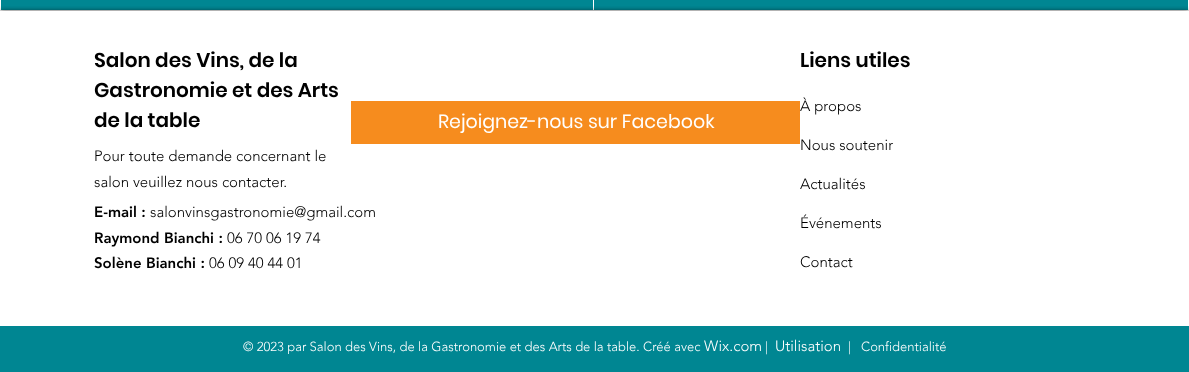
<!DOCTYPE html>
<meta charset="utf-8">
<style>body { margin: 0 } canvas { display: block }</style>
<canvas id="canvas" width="1189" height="372"></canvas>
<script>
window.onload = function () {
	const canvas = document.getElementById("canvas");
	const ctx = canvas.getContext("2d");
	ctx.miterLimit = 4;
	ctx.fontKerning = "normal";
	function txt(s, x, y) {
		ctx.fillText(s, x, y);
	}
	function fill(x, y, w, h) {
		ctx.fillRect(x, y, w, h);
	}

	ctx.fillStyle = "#FFFFFF";
	fill(0, 0, 1189, 372);
	ctx.fillStyle = "#008692";
	fill(1, 0, 592, 10);
	fill(594, 0, 594, 10);
	ctx.save();
	ctx.beginPath();
	ctx.rect(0, 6, 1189, 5);
	ctx.clip();
	ctx.fillStyle = "rgba(0, 0, 0, 0.7)";
	ctx.filter = "blur(2.5px)";
	ctx.beginPath();
	ctx.rect(0, 11, 1189, 361);
	ctx.fill();
	ctx.filter = "none";
	ctx.restore();
	ctx.fillStyle = "#F68C1E";
	fill(351, 101, 449, 43);
	ctx.fillStyle = "#008692";
	fill(0, 326, 1189, 46);
	ctx.font = "600 20px Poppins";
	ctx.fillStyle = "#000000";
	txt("Salon des Vins, de la", 94, 67);
	txt("Gastronomie et des Arts", 94, 97);
	txt("de la table", 94, 127);
	ctx.font = "300 15px 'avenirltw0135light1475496'";
	txt("Pour toute demande concernant le", 94, 161);
	txt("salon veuillez nous contacter.", 94, 187);
	ctx.font = "900 15px 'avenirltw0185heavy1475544'";
	txt("E-mail :", 94, 217);
	ctx.font = "300 15px 'avenirltw0135light1475496'";
	txt("salonvinsgastronomie@gmail.com", 150, 217);
	ctx.font = "900 15px 'avenirltw0185heavy1475544'";
	txt("Raymond Bianchi :", 94, 243);
	ctx.font = "300 15px 'avenirltw0135light1475496'";
	txt("06 70 06 19 74", 227, 243);
	ctx.font = "900 15px 'avenirltw0185heavy1475544'";
	txt("Solène Bianchi :", 94, 268);
	ctx.font = "300 15px 'avenirltw0135light1475496'";
	txt("06 09 40 44 01", 209, 268);
	ctx.font = "19px Poppins";
	ctx.fillStyle = "#FFFFFF";
	txt("Rejoignez-nous sur Facebook", 438, 128);
	ctx.font = "600 20px Poppins";
	ctx.fillStyle = "#000000";
	txt("Liens utiles", 800, 67);
	ctx.font = "300 15px 'avenirltw0135light1475496'";
	txt("À propos", 800, 111);
	txt("Nous soutenir", 800, 150);
	txt("Actualités", 800, 189);
	txt("Événements", 800, 228);
	txt("Contact", 800, 267);
	ctx.font = "300 13px 'avenirltw0135light1475496'";
	ctx.fillStyle = "#FFFFFF";
	txt("© 2023 par Salon des Vins, de la Gastronomie et des Arts de la table. Créé avec", 243, 351);
	ctx.font = "300 15px 'avenirltw0135light1475496'";
	txt("Wix.com", 704, 351);
	ctx.font = "300 13px 'avenirltw0135light1475496'";
	txt("|", 765, 351);
	ctx.font = "300 15px 'avenirltw0135light1475496'";
	txt("Utilisation", 775, 351);
	ctx.font = "300 13px 'avenirltw0135light1475496'";
	txt("|", 848, 351);
	txt("Confidentialité", 861, 351);
};
</script>
